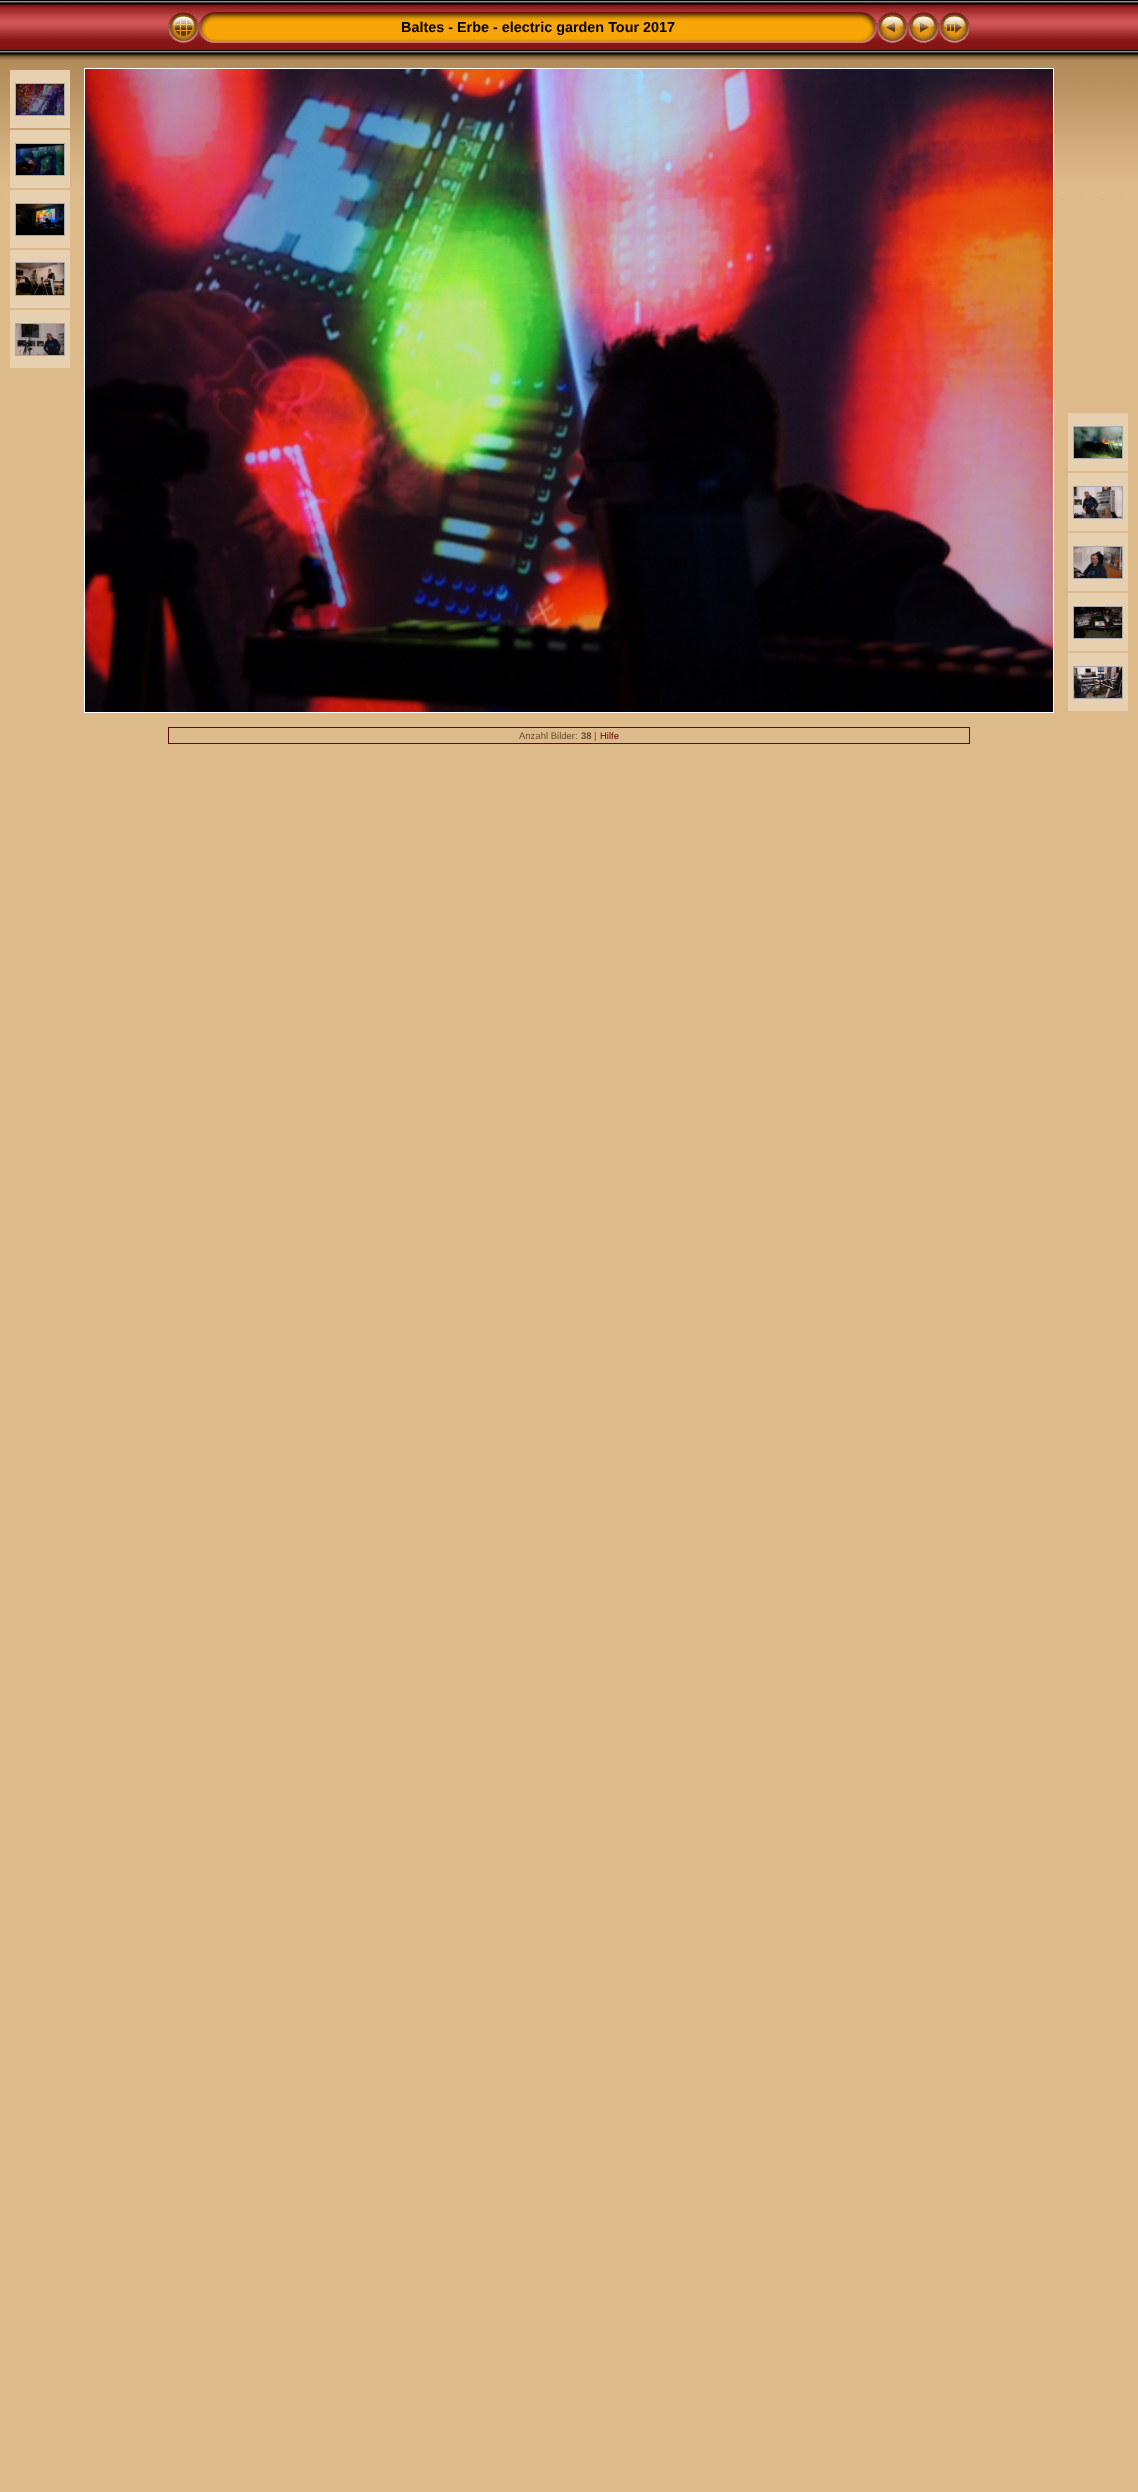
<!DOCTYPE html>
<meta charset="utf-8">
<style>body { margin: 0 } canvas { display: block }</style>
<canvas id="canvas" width="1138" height="2492"></canvas>
<img id="img1" src="img_01.png" hidden>
<img id="img2" src="img_02.png" hidden>
<img id="img3" src="img_03.png" hidden>
<img id="img4" src="img_04.png" hidden>
<img id="img5" src="img_05.png" hidden>
<img id="img6" src="img_06.png" hidden>
<img id="img7" src="img_07.png" hidden>
<img id="img8" src="img_08.png" hidden>
<img id="img9" src="img_09.png" hidden>
<img id="img10" src="img_10.png" hidden>
<img id="img11" src="img_11.png" hidden>
<img id="img12" src="img_12.png" hidden>
<img id="img13" src="img_13.png" hidden>
<img id="img14" src="img_14.png" hidden>
<img id="img15" src="img_15.png" hidden>
<img id="img16" src="img_16.png" hidden>
<img id="img17" src="img_17.png" hidden>
<img id="img18" src="img_18.png" hidden>
<img id="img19" src="img_19.png" hidden>
<script>
window.onload = function () {
	const canvas = document.getElementById("canvas");
	const ctx = canvas.getContext("2d");
	ctx.miterLimit = 4;
	ctx.fontKerning = "normal";
	function txt(s, x, y) {
		ctx.fillText(s, x, y);
	}
	function fill(x, y, w, h) {
		ctx.fillRect(x, y, w, h);
	}
	function img(id, x, y, w, h) {
		ctx.drawImage(document.getElementById(id), x, y, w, h);
	}

	ctx.fillStyle = "#DDBA8A";
	fill(0, 0, 1138, 2492);
	img("img1", 0, 0, 1138, 200);
	img("img2", 168, 12, 31, 31);
	img("img3", 199, 12, 20, 31);
	img("img4", 219, 12, 638, 31);
	img("img5", 857, 12, 20, 31);
	img("img6", 877, 12, 31, 31);
	img("img7", 908, 12, 31, 31);
	img("img8", 939, 12, 31, 31);
	ctx.fillStyle = "#E7D0B0";
	fill(10, 70, 60, 58);
	ctx.strokeStyle = "#AAAAAA";
	ctx.strokeRect(15.5, 83.5, 49, 32);
	img("img9", 16, 84, 48, 31);
	fill(10, 130, 60, 58);
	ctx.strokeRect(15.5, 143.5, 49, 32);
	img("img10", 16, 144, 48, 31);
	fill(10, 190, 60, 58);
	ctx.strokeRect(15.5, 203.5, 49, 32);
	img("img11", 16, 204, 48, 31);
	fill(10, 250, 60, 58);
	ctx.strokeRect(15.5, 262.5, 49, 33);
	img("img12", 16, 263, 48, 32);
	fill(10, 310, 60, 58);
	ctx.strokeRect(15.5, 323.5, 49, 32);
	img("img13", 16, 324, 48, 31);
	ctx.strokeStyle = "#FFFFFF";
	ctx.strokeRect(84.5, 68.5, 969, 644);
	img("img14", 85, 69, 968, 643);
	fill(1068, 413, 60, 58);
	ctx.strokeStyle = "#AAAAAA";
	ctx.strokeRect(1073.5, 426.5, 49, 32);
	img("img15", 1074, 427, 48, 31);
	fill(1068, 473, 60, 58);
	ctx.strokeRect(1073.5, 486.5, 49, 32);
	img("img16", 1074, 487, 48, 31);
	fill(1068, 533, 60, 58);
	ctx.strokeRect(1073.5, 546.5, 49, 32);
	img("img17", 1074, 547, 48, 31);
	fill(1068, 593, 60, 58);
	ctx.strokeRect(1073.5, 606.5, 49, 32);
	img("img18", 1074, 607, 48, 31);
	fill(1068, 653, 60, 58);
	ctx.strokeRect(1073.5, 666.5, 49, 32);
	img("img19", 1074, 667, 48, 31);
	ctx.fillStyle = "#610505";
	fill(168, 727, 802, 1);
	fill(969, 727, 1, 17);
	fill(168, 743, 802, 1);
	fill(168, 727, 1, 17);
	ctx.font = "bold 14.4px Liberation Sans";
	ctx.fillStyle = "#000000";
	txt("Baltes - Erbe - electric garden Tour 2017", 401, 32);
	ctx.font = "9.5px Liberation Sans";
	ctx.fillStyle = "#644E33";
	txt("Anzahl Bilder:", 519, 739);
	ctx.font = "bold 9.5px Liberation Sans";
	txt("38", 581, 739);
	ctx.font = "9.5px Liberation Sans";
	txt("|", 594, 739);
	ctx.fillStyle = "#610505";
	txt("Hilfe", 600, 739);
};
</script>
